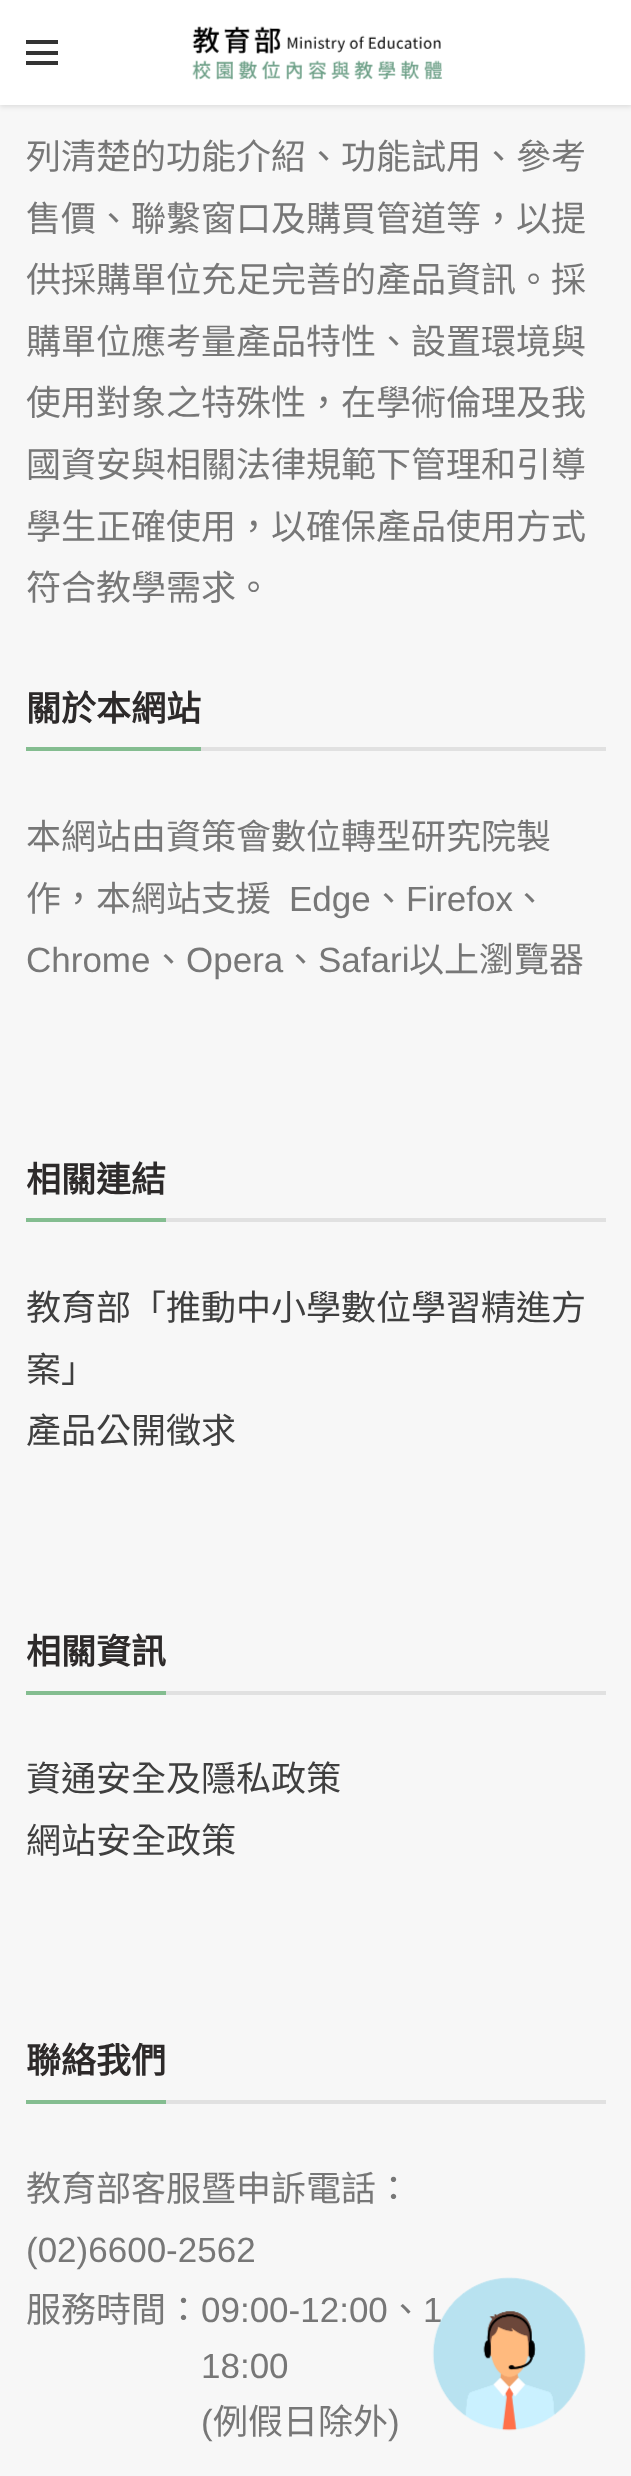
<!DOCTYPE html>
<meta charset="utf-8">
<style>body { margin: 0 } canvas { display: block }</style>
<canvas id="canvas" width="631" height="2476"></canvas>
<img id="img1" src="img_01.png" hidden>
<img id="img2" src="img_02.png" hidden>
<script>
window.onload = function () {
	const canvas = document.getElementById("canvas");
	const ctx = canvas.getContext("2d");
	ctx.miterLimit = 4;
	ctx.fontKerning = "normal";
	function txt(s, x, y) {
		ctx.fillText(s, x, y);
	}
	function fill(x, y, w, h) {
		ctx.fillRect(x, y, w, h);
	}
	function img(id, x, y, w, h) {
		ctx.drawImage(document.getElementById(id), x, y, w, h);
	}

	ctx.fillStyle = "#F7F7F7";
	fill(0, 0, 631, 2476);
	ctx.fillStyle = "rgba(0, 0, 0, 0.1)";
	ctx.filter = "blur(2.5px)";
	ctx.beginPath();
	ctx.rect(0, 2, 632, 105);
	ctx.fill();
	ctx.filter = "none";
	ctx.fillStyle = "#FFFFFF";
	fill(0, 0, 631, 105);
	ctx.fillStyle = "#333333";
	fill(26, 51, 32, 4);
	fill(26, 40, 32, 4);
	fill(26, 61, 32, 4);
	img("img1", 192, 26, 251, 54);
	ctx.fillStyle = "#E1E1E1";
	fill(201, 747, 405, 4);
	ctx.fillStyle = "#84BD90";
	fill(26, 747, 175, 4);
	ctx.fillStyle = "#E1E1E1";
	fill(166, 1218, 440, 4);
	ctx.fillStyle = "#84BD90";
	fill(26, 1218, 140, 4);
	ctx.fillStyle = "#E1E1E1";
	fill(166, 1691, 440, 4);
	ctx.fillStyle = "#84BD90";
	fill(26, 1691, 140, 4);
	ctx.fillStyle = "#E1E1E1";
	fill(166, 2100, 440, 4);
	ctx.fillStyle = "#84BD90";
	fill(26, 2100, 140, 4);
	ctx.font = "35px Noto Sans CJK TC";
	ctx.fillStyle = "#777777";
	txt("列清楚的功能介紹、功能試用、參考", 26, 169);
	txt("售價、聯繫窗口及購買管道等，以提", 26, 231);
	txt("供採購單位充足完善的產品資訊。採", 26, 292);
	txt("購單位應考量產品特性、設置環境與", 26, 354);
	txt("使用對象之特殊性，在學術倫理及我", 26, 415);
	txt("國資安與相關法律規範下管理和引導", 26, 477);
	txt("學生正確使用，以確保產品使用方式", 26, 539);
	txt("符合教學需求。", 26, 600);
	ctx.font = "bold 35px Noto Sans CJK TC";
	ctx.fillStyle = "#2D2A2A";
	txt("關於本網站", 26, 721);
	ctx.font = "35px Noto Sans CJK TC";
	ctx.fillStyle = "#777777";
	txt("本網站由資策會數位轉型研究院製", 26, 849);
	txt("作，本網站支援", 26, 911);
	ctx.font = "35px Liberation Sans";
	txt("Edge", 289, 911);
	ctx.font = "35px Noto Sans CJK TC";
	txt("、", 371, 911);
	ctx.font = "35px Liberation Sans";
	txt("Firefox", 406, 911);
	ctx.font = "35px Noto Sans CJK TC";
	txt("、", 512, 911);
	ctx.font = "35px Liberation Sans";
	txt("Chrome", 26, 972);
	ctx.font = "35px Noto Sans CJK TC";
	txt("、", 151, 972);
	ctx.font = "35px Liberation Sans";
	txt("Opera", 186, 972);
	ctx.font = "35px Noto Sans CJK TC";
	txt("、", 283, 972);
	ctx.font = "35px Liberation Sans";
	txt("Safari", 318, 972);
	ctx.font = "35px Noto Sans CJK TC";
	txt("以上瀏覽器", 409, 972);
	ctx.font = "bold 35px Noto Sans CJK TC";
	ctx.fillStyle = "#2D2A2A";
	txt("相關連結", 26, 1192);
	ctx.font = "35px Noto Sans CJK TC";
	ctx.fillStyle = "#3F3F3F";
	txt("教育部「推動中小學數位學習精進方", 26, 1320);
	txt("案」", 26, 1382);
	txt("產品公開徵求", 26, 1443);
	ctx.font = "bold 35px Noto Sans CJK TC";
	ctx.fillStyle = "#2D2A2A";
	txt("相關資訊", 26, 1664);
	ctx.font = "35px Noto Sans CJK TC";
	ctx.fillStyle = "#3F3F3F";
	txt("資通安全及隱私政策", 26, 1791);
	txt("網站安全政策", 26, 1853);
	ctx.font = "bold 35px Noto Sans CJK TC";
	ctx.fillStyle = "#2D2A2A";
	txt("聯絡我們", 26, 2073);
	ctx.font = "35px Noto Sans CJK TC";
	ctx.fillStyle = "#777777";
	txt("教育部客服暨申訴電話：", 26, 2201);
	ctx.font = "35px Liberation Sans";
	txt("(02)6600-2562", 26, 2262);
	ctx.font = "35px Noto Sans CJK TC";
	txt("服務時間：", 26, 2322);
	ctx.font = "35px Liberation Sans";
	txt("09:00-12:00", 201, 2322);
	ctx.font = "35px Noto Sans CJK TC";
	txt("、", 388, 2322);
	ctx.font = "35px Liberation Sans";
	txt("1", 423, 2322);
	txt("18:00", 201, 2378);
	txt("(", 201, 2434);
	ctx.font = "35px Noto Sans CJK TC";
	txt("例假日除外", 213, 2434);
	ctx.font = "35px Liberation Sans";
	txt(")", 388, 2434);
	img("img2", 432, 2277, 154, 154);
};
</script>
